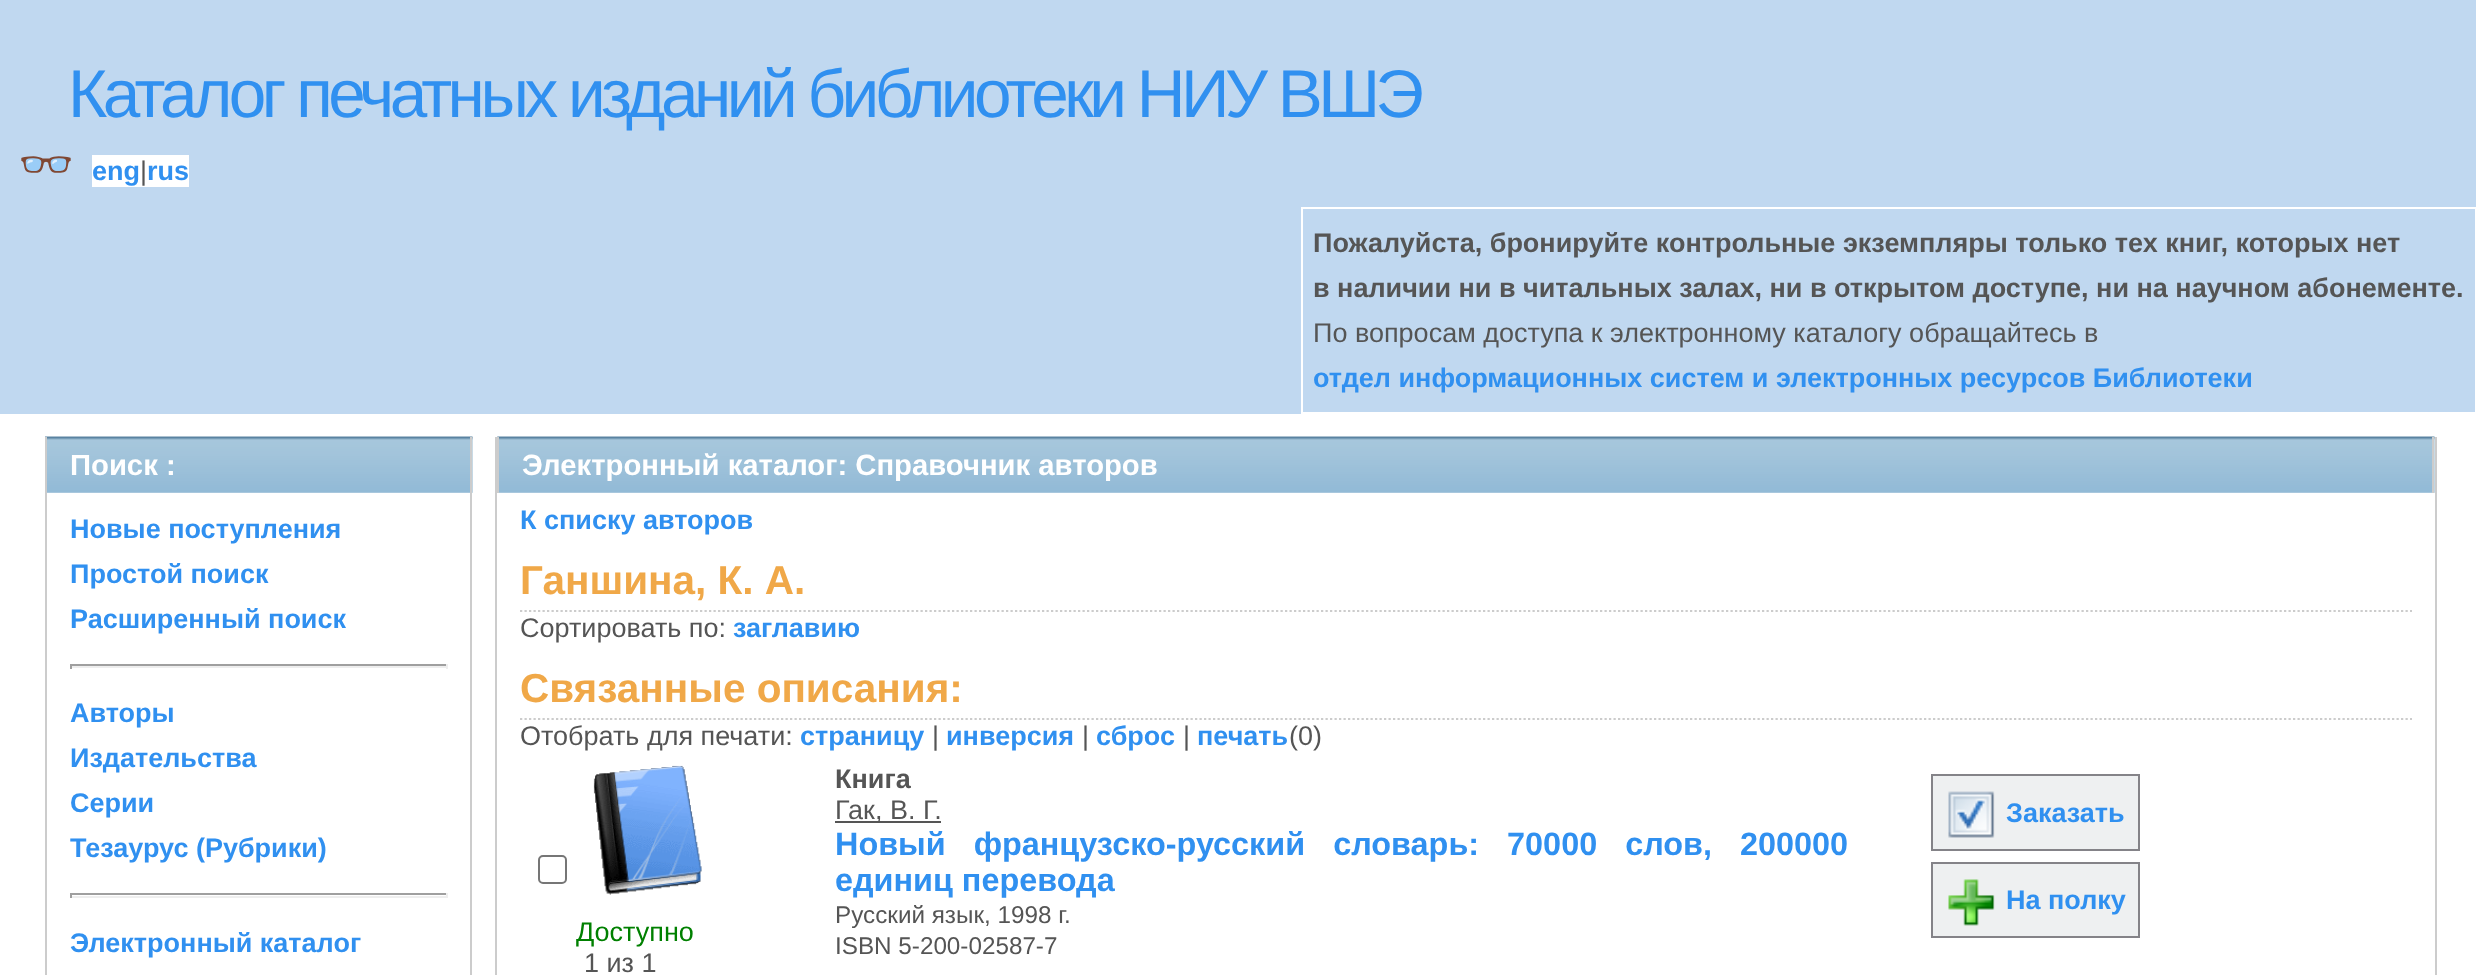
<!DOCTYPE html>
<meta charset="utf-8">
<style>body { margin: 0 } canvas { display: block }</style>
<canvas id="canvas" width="2476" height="975"></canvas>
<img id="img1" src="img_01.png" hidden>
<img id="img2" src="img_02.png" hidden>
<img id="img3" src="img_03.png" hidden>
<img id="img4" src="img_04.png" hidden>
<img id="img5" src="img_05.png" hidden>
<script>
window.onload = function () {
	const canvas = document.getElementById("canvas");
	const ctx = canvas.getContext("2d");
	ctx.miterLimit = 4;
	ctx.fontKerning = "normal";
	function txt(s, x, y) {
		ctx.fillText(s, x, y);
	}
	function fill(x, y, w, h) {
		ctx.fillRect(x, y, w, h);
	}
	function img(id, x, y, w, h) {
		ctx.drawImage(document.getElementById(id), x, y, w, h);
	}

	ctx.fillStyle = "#FFFFFF";
	fill(0, 0, 2476, 975);
	ctx.fillStyle = "#C0D8F0";
	fill(0, 0, 2476, 414);
	ctx.fillStyle = "#FFFFFF";
	fill(92, 155, 97, 32);
	ctx.strokeStyle = "#FFFFFF";
	ctx.lineWidth = 2;
	ctx.strokeRect(1302, 208, 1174, 205);
	ctx.fillStyle = "#EEF0F1";
	fill(47, 437, 426, 56);
	img("img1", 45, 436, 428, 57);
	ctx.fillStyle = "#CCCCCC";
	fill(470, 437, 2, 538);
	fill(45, 437, 2, 538);
	ctx.fillStyle = "#9F9F9F";
	fill(70, 664, 378, 2);
	ctx.fillStyle = "#EEEEEE";
	fill(446, 664, 2, 5);
	fill(70, 666, 378, 2);
	ctx.fillStyle = "#9F9F9F";
	fill(70, 664, 2, 5);
	fill(70, 893, 378, 2);
	ctx.fillStyle = "#EEEEEE";
	fill(446, 893, 2, 5);
	fill(70, 896, 378, 2);
	ctx.fillStyle = "#9F9F9F";
	fill(70, 893, 2, 5);
	ctx.fillStyle = "#CCCCCC";
	fill(2435, 437, 2, 538);
	fill(495, 437, 2, 538);
	ctx.fillStyle = "#EEF0F1";
	fill(499, 437, 1936, 56);
	img("img2", 497, 436, 1938, 57);
	ctx.fillStyle = "#CCCCCC";
	fill(2432, 437, 2, 56);
	fill(497, 437, 2, 56);
	ctx.beginPath();
	ctx.moveTo(520, 611);
	ctx.lineTo(2412, 611);
	ctx.strokeStyle = "#CCCCCC";
	ctx.lineWidth = 2.2;
	ctx.setLineDash([2.25, 2.25]);
	ctx.stroke();
	ctx.beginPath();
	ctx.moveTo(520, 719);
	ctx.lineTo(2412, 719);
	ctx.stroke();
	ctx.fillStyle = "#555555";
	fill(835, 821, 106, 2);
	ctx.fillStyle = "#EEF0F1";
	ctx.beginPath();
	ctx.rect(1932, 775, 207, 75);
	ctx.fill();
	ctx.strokeStyle = "#848388";
	ctx.lineWidth = 2;
	ctx.setLineDash([]);
	ctx.stroke();
	img("img3", 1948, 791, 47, 47);
	ctx.beginPath();
	ctx.rect(1932, 863, 207, 74);
	ctx.fill();
	ctx.stroke();
	img("img4", 1948, 879, 47, 47);
	ctx.beginPath();
	ctx.roundRect(539, 856, 27, 27, 4);
	ctx.strokeStyle = "#767676";
	ctx.stroke();
	img("img5", 593, 765, 109, 130);
	ctx.letterSpacing = "-4.5px";
	ctx.font = "67.5px Liberation Sans";
	ctx.fillStyle = "#3090F0";
	txt("Каталог печатных изданий библиотеки НИУ ВШЭ", 68, 117);
	ctx.letterSpacing = "0px";
	ctx.font = "bold 45px Noto Color Emoji";
	txt("👓", 18, 180);
	ctx.font = "bold 27px Liberation Sans";
	txt("eng", 92, 180);
	ctx.font = "27px Liberation Sans";
	ctx.fillStyle = "#555555";
	txt("|", 140, 180);
	ctx.font = "bold 27px Liberation Sans";
	ctx.fillStyle = "#3090F0";
	txt("rus", 147, 180);
	ctx.fillStyle = "#555555";
	txt("Пожалуйста, бронируйте контрольные экземпляры только тех книг, которых нет", 1313, 252);
	txt("в наличии ни в читальных залах, ни в открытом доступе, ни на научном абонементе.", 1313, 297);
	ctx.font = "27px Liberation Sans";
	txt("По вопросам доступа к электронному каталогу обращайтесь в", 1313, 342);
	ctx.font = "bold 27px Liberation Sans";
	ctx.fillStyle = "#3090F0";
	txt("отдел информационных систем и электронных ресурсов Библиотеки", 1313, 387);
	ctx.font = "bold 29.25px Liberation Sans";
	ctx.fillStyle = "#FFFFFF";
	txt("Поиск :", 70, 475);
	ctx.font = "bold 27px Liberation Sans";
	ctx.fillStyle = "#3090F0";
	txt("Новые поступления", 70, 538);
	txt("Простой поиск", 70, 583);
	txt("Расширенный поиск", 70, 628);
	txt("Авторы", 70, 722);
	txt("Издательства", 70, 767);
	txt("Серии", 70, 812);
	txt("Тезаурус (Рубрики)", 70, 857);
	txt("Электронный каталог", 70, 952);
	ctx.font = "bold 29.25px Liberation Sans";
	ctx.fillStyle = "#FFFFFF";
	txt("Электронный каталог: Справочник авторов", 522, 475);
	ctx.font = "bold 27px Liberation Sans";
	ctx.fillStyle = "#3090F0";
	txt("К списку авторов", 520, 529);
	ctx.font = "bold 40.5px Liberation Sans";
	ctx.fillStyle = "#F0A848";
	txt("Ганшина, К. А.", 520, 594);
	ctx.font = "27px Liberation Sans";
	ctx.fillStyle = "#555555";
	txt("Сортировать по:", 520, 637);
	ctx.font = "bold 27px Liberation Sans";
	ctx.fillStyle = "#3090F0";
	txt("заглавию", 733, 637);
	ctx.font = "bold 40.5px Liberation Sans";
	ctx.fillStyle = "#F0A848";
	txt("Связанные описания:", 520, 702);
	ctx.font = "27px Liberation Sans";
	ctx.fillStyle = "#555555";
	txt("Отобрать для печати:", 520, 745);
	ctx.font = "bold 27px Liberation Sans";
	ctx.fillStyle = "#3090F0";
	txt("страницу", 800, 745);
	ctx.font = "27px Liberation Sans";
	ctx.fillStyle = "#555555";
	txt("|", 932, 745);
	ctx.font = "bold 27px Liberation Sans";
	ctx.fillStyle = "#3090F0";
	txt("инверсия", 946, 745);
	ctx.font = "27px Liberation Sans";
	ctx.fillStyle = "#555555";
	txt("|", 1082, 745);
	ctx.font = "bold 27px Liberation Sans";
	ctx.fillStyle = "#3090F0";
	txt("сброс", 1096, 745);
	ctx.font = "27px Liberation Sans";
	ctx.fillStyle = "#555555";
	txt("|", 1183, 745);
	ctx.font = "bold 27px Liberation Sans";
	ctx.fillStyle = "#3090F0";
	txt("печать", 1197, 745);
	ctx.font = "27px Liberation Sans";
	ctx.fillStyle = "#555555";
	txt("(0)", 1289, 745);
	ctx.font = "bold 27px Liberation Sans";
	txt("Книга", 835, 788);
	ctx.font = "27px Liberation Sans";
	txt("Гак, В. Г.", 835, 819);
	ctx.wordSpacing = "19px";
	ctx.font = "bold 32.4px Liberation Sans";
	ctx.fillStyle = "#3090F0";
	txt("Новый французско-русский словарь: 70000 слов, 200000", 835, 855);
	ctx.wordSpacing = "0px";
	txt("единиц перевода", 835, 891);
	ctx.font = "24.25px Liberation Sans";
	ctx.fillStyle = "#555555";
	txt("Русский язык, 1998 г.", 835, 923);
	txt("ISBN 5-200-02587-7", 835, 954);
	ctx.font = "bold 27px Liberation Sans";
	ctx.fillStyle = "#3090F0";
	txt("Заказать", 2006, 822);
	txt("На полку", 2006, 909);
	ctx.font = "27px Liberation Sans";
	ctx.fillStyle = "#008000";
	txt("Доступно", 576, 941);
	ctx.fillStyle = "#555555";
	txt("1 из 1", 584, 972);
};
</script>
